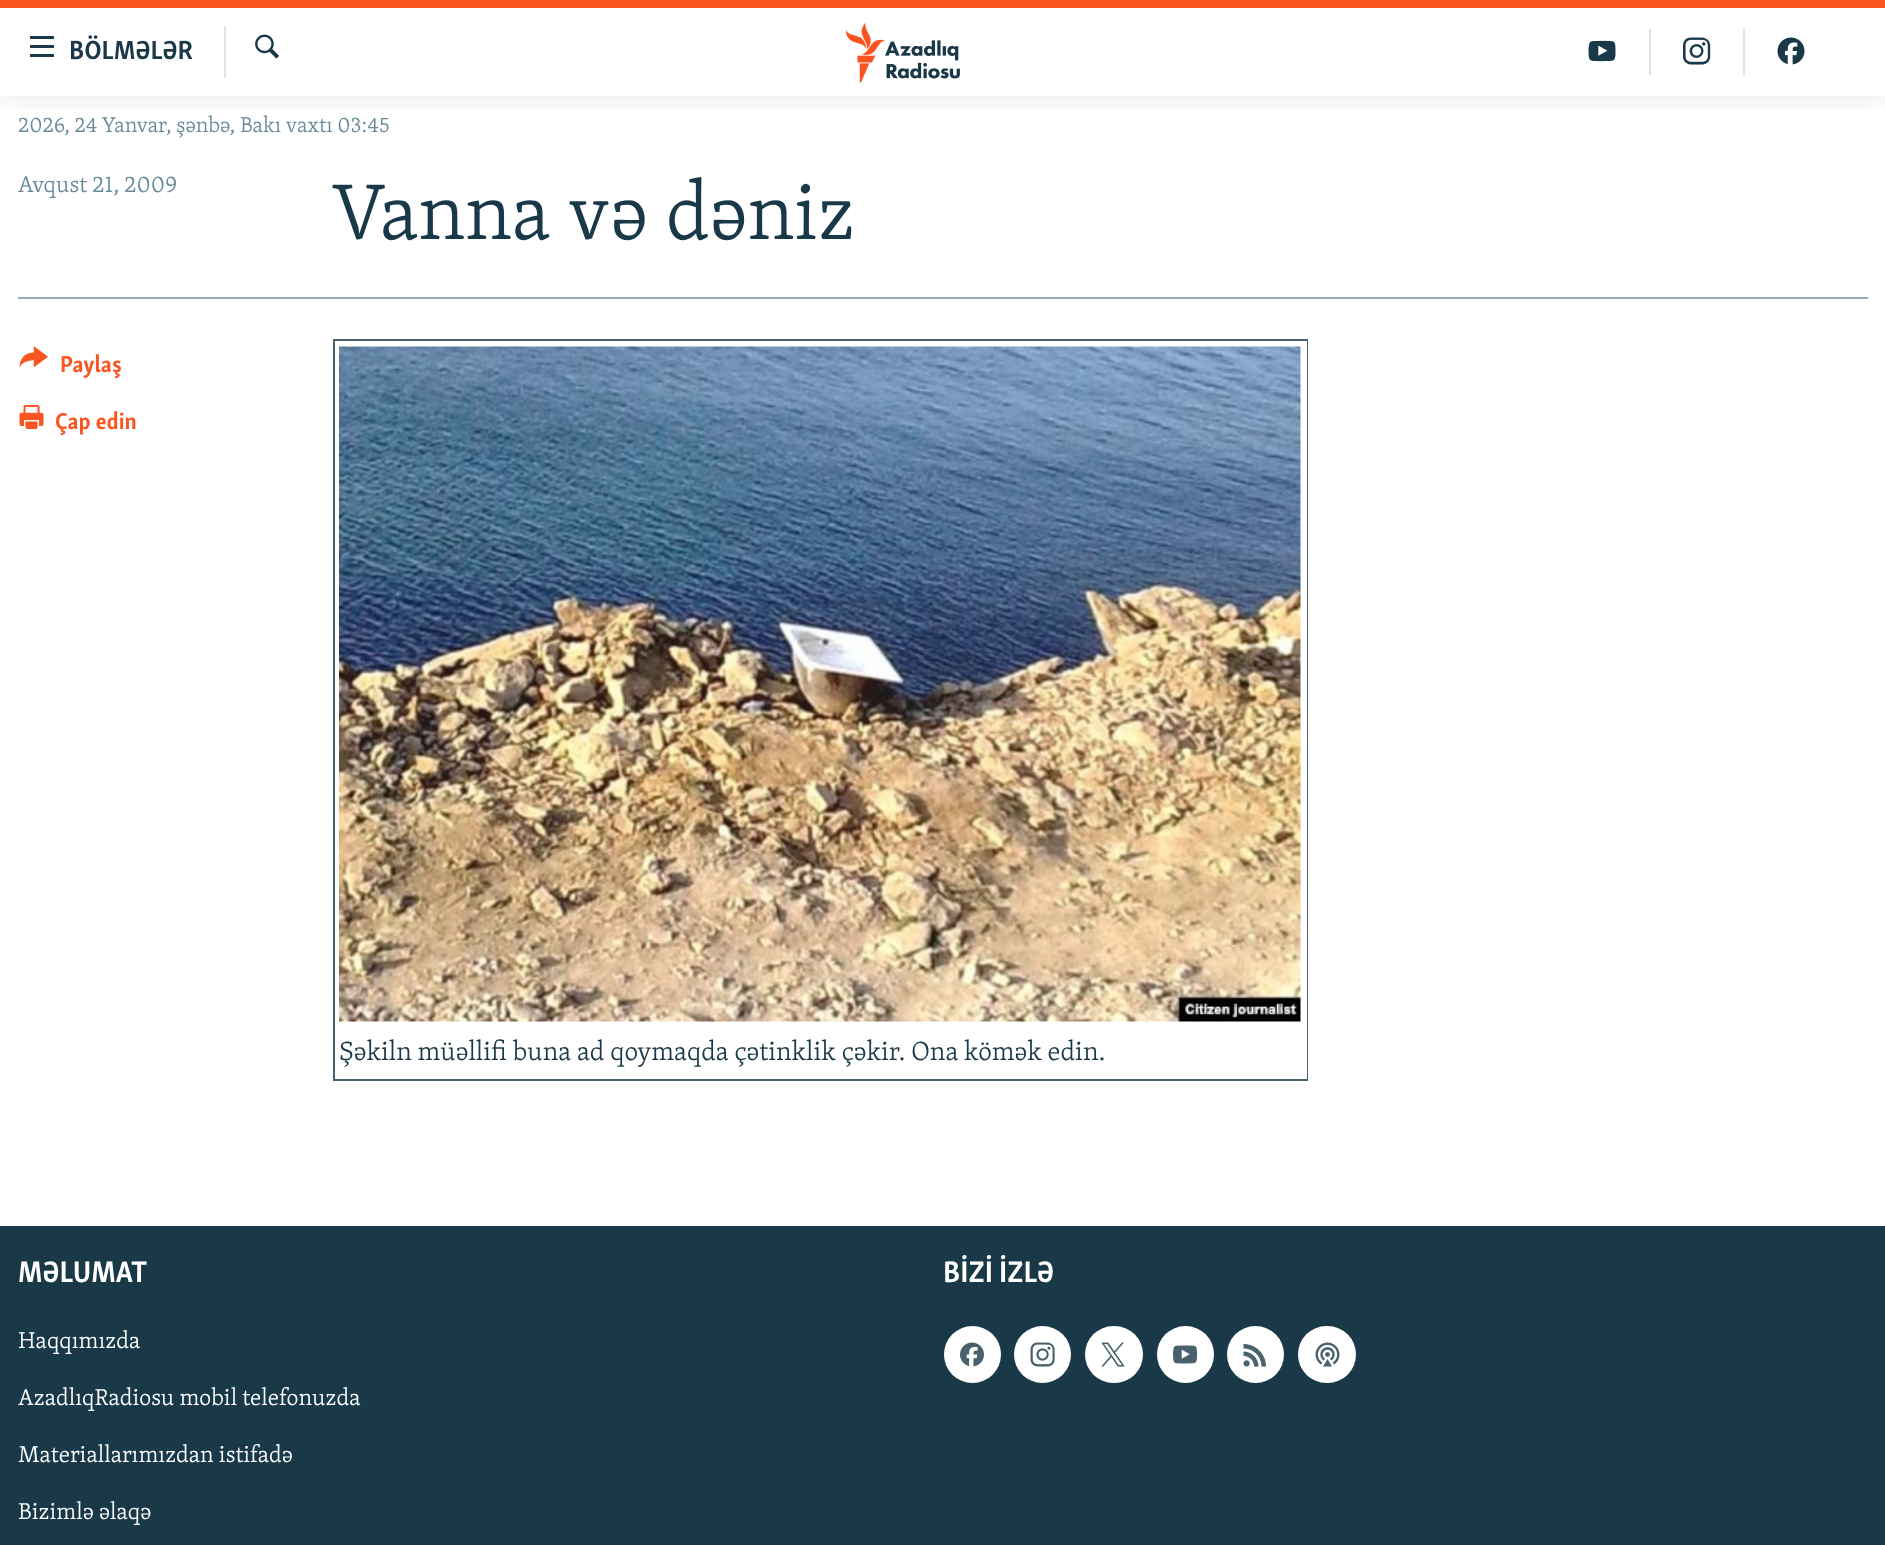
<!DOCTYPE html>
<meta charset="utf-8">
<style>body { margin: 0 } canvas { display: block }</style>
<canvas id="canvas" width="1885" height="1545"></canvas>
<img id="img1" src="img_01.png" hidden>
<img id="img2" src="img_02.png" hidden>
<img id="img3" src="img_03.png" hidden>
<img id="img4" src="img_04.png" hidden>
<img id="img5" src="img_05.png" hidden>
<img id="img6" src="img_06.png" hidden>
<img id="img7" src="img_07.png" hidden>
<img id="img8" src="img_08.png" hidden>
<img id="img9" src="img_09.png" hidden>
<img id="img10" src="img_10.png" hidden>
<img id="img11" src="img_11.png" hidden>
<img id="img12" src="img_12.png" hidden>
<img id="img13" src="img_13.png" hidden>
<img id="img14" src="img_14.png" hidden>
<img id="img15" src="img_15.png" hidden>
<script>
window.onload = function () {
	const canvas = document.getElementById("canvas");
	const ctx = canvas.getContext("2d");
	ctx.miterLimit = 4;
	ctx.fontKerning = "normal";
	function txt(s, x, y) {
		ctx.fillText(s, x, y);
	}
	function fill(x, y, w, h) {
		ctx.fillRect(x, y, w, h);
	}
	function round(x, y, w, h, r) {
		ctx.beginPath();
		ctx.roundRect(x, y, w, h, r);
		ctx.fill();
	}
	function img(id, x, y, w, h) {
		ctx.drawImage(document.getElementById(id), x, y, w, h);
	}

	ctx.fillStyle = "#FFFFFF";
	fill(0, 0, 1885, 1545);
	ctx.save();
	ctx.beginPath();
	ctx.rect(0, 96, 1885, 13);
	ctx.clip();
	ctx.fillStyle = "rgba(0, 0, 0, 0.1)";
	ctx.filter = "blur(15px)";
	ctx.beginPath();
	ctx.rect(0, 0, 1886, 96);
	ctx.fill();
	ctx.filter = "none";
	ctx.restore();
	ctx.fillStyle = "#FA5420";
	fill(0, 0, 1885, 8);
	img("img1", 30, 36, 24, 21);
	ctx.fillStyle = "#DCE4E8";
	fill(224, 26, 2, 52);
	img("img2", 255, 34, 24, 25);
	img("img3", 846, 23, 114, 60);
	fill(1649, 29, 2, 46);
	img("img4", 1588, 40, 28, 22);
	fill(1743, 29, 2, 46);
	img("img5", 1683, 37, 28, 28);
	img("img6", 1777, 37, 28, 28);
	ctx.fillStyle = "#95ADB9";
	fill(18, 297, 1850, 2);
	img("img7", 19, 346, 29, 22);
	img("img8", 19, 405, 25, 24);
	ctx.fillStyle = "#48616D";
	fill(333, 339, 975, 2);
	fill(1307, 339, 1, 741);
	fill(333, 1079, 975, 2);
	fill(333, 339, 2, 741);
	img("img9", 339, 346, 962, 676);
	ctx.fillStyle = "#1A3948";
	fill(0, 1226, 1885, 319);
	ctx.fillStyle = "#FFFFFF";
	ctx.beginPath();
	ctx.arc(972.5, 1354.5, 28.5, 0, Math.PI * 2);
	ctx.fill();
	img("img10", 960, 1342, 24, 25);
	ctx.beginPath();
	ctx.arc(1042.5, 1354.5, 28.5, 0, Math.PI * 2);
	ctx.fill();
	img("img11", 1030, 1342, 25, 25);
	round(1085, 1326, 58, 57, 28.5);
	img("img12", 1101, 1342, 24, 25);
	ctx.beginPath();
	ctx.arc(1185.5, 1354.5, 28.5, 0, Math.PI * 2);
	ctx.fill();
	img("img13", 1173, 1345, 24, 19);
	ctx.beginPath();
	ctx.arc(1255.5, 1354.5, 28.5, 0, Math.PI * 2);
	ctx.fill();
	img("img14", 1243, 1344, 23, 23);
	round(1298, 1326, 58, 57, 28.5);
	img("img15", 1315, 1342, 25, 25);
	ctx.font = "bold 27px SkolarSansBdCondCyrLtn";
	ctx.fillStyle = "#1A3948";
	txt("BÖLMƏLƏR", 69, 59);
	ctx.font = "300 21.9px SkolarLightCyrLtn";
	ctx.fillStyle = "#678A9B";
	txt("2026, 24 Yanvar, şənbə, Bakı vaxtı 03:45", 18, 132);
	ctx.font = "300 23.6px SkolarLightCyrLtn";
	txt("Avqust 21, 2009", 18, 192);
	ctx.font = "300 81px SkolarLightCyrLtn";
	ctx.fillStyle = "#1A3948";
	txt("Vanna və dəniz", 332, 239);
	ctx.font = "bold 23.6px SkolarSansBdCondCyrLtn";
	ctx.fillStyle = "#FA5420";
	txt("Paylaş", 60, 372);
	txt("Çap edin", 55, 429);
	ctx.font = "300 27px SkolarLightCyrLtn";
	ctx.fillStyle = "#1A3948";
	txt("Şəkiln müəllifi buna ad qoymaqda çətinklik çəkir. Ona kömək edin.", 339, 1060);
	ctx.font = "bold 30.5px SkolarSansBdCondCyrLtn";
	ctx.fillStyle = "#FFFFFF";
	txt("MƏLUMAT", 18, 1282);
	ctx.font = "300 23.6px SkolarLightCyrLtn";
	txt("Haqqımızda", 18, 1348);
	txt("AzadlıqRadiosu mobil telefonuzda", 18, 1405);
	txt("Materiallarımızdan istifadə", 18, 1462);
	txt("Bizimlə əlaqə", 18, 1519);
	ctx.font = "bold 30.5px SkolarSansBdCondCyrLtn";
	txt("BİZİ İZLƏ", 943, 1282);
};
</script>
